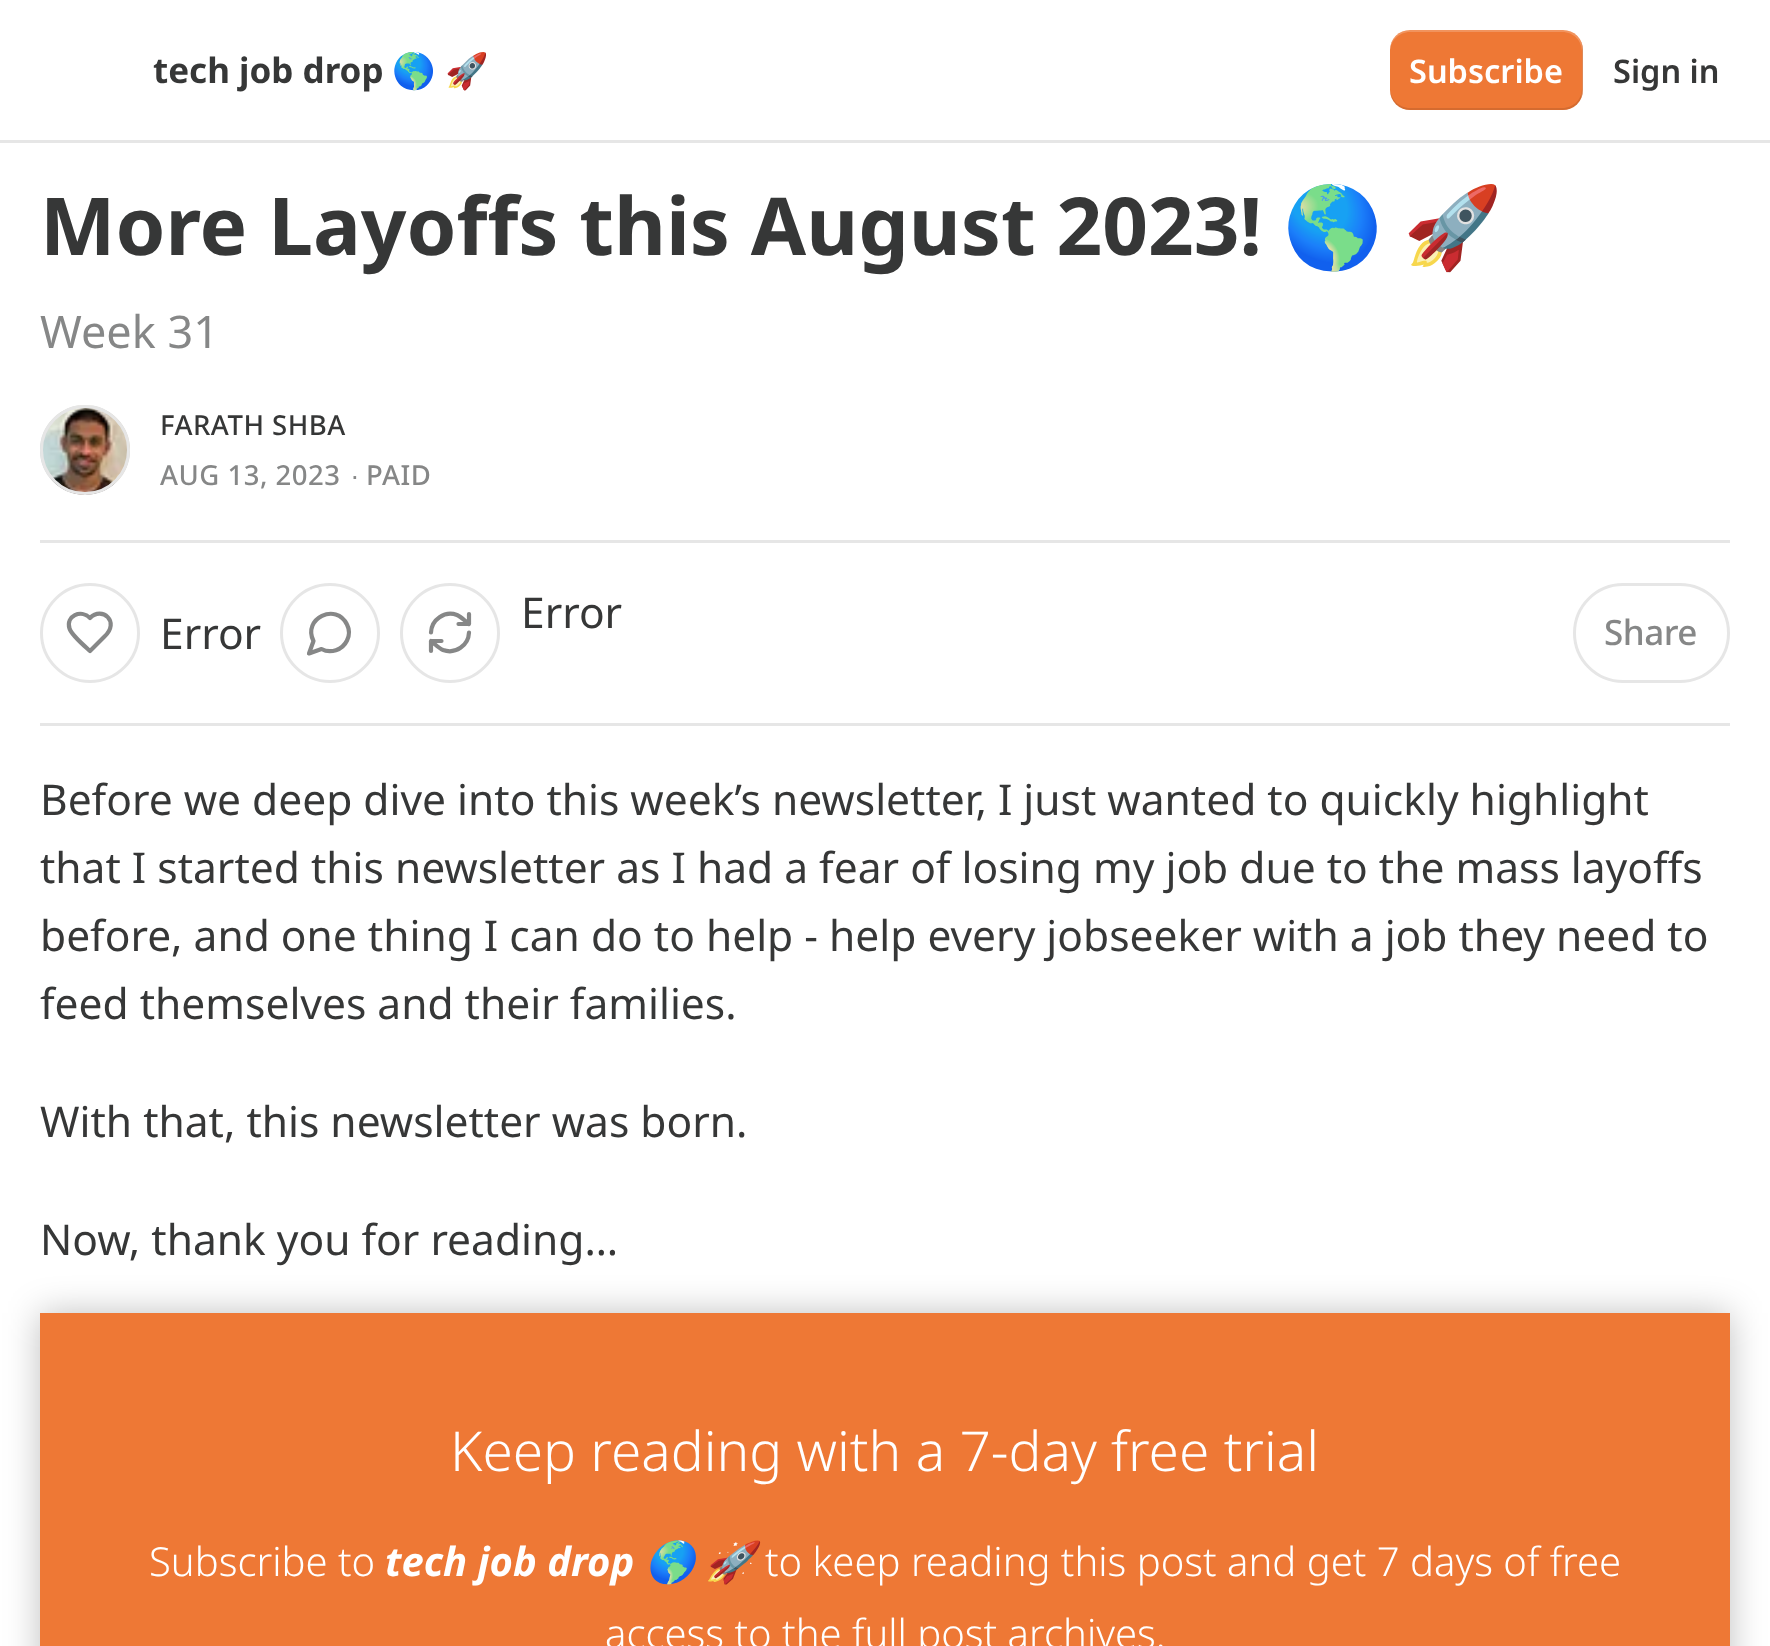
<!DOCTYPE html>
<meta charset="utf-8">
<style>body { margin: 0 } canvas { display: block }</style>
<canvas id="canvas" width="1770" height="1646"></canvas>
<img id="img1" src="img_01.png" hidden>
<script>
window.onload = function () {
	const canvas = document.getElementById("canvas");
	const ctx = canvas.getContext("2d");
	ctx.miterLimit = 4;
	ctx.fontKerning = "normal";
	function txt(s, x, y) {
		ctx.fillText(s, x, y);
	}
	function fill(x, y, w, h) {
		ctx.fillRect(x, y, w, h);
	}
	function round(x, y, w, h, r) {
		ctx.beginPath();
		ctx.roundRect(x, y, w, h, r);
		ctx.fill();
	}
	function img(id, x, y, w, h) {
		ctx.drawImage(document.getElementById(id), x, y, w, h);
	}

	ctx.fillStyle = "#FFFFFF";
	fill(0, 0, 1770, 1646);
	ctx.fillStyle = "#E6E6E6";
	fill(0, 140, 1770, 3);
	ctx.fillStyle = "#EE7835";
	round(1390, 30, 193, 80, 20);
	ctx.fillStyle = "rgba(0, 0, 0, 0.1)";
	ctx.beginPath();
	ctx.moveTo(1390, 88);
	ctx.lineTo(1390, 90);
	ctx.bezierCurveTo(1390, 101, 1399, 110, 1410, 110);
	ctx.lineTo(1563, 110);
	ctx.bezierCurveTo(1574, 110, 1583, 101, 1583, 90);
	ctx.lineTo(1583, 50);
	ctx.bezierCurveTo(1583, 47, 1582, 44, 1581, 42);
	ctx.lineTo(1582, 48);
	ctx.lineTo(1582, 88);
	ctx.bezierCurveTo(1582, 99, 1574, 108, 1562, 108);
	ctx.lineTo(1410, 108);
	ctx.bezierCurveTo(1399, 108, 1390, 99, 1390, 88);
	ctx.closePath();
	ctx.fill();
	ctx.fillStyle = "rgba(255, 255, 255, 0.2)";
	ctx.beginPath();
	ctx.moveTo(1410, 32);
	ctx.lineTo(1562, 32);
	ctx.bezierCurveTo(1574, 32, 1582, 41, 1582, 52);
	ctx.lineTo(1582, 92);
	ctx.lineTo(1581, 98);
	ctx.bezierCurveTo(1582, 96, 1583, 93, 1583, 90);
	ctx.lineTo(1583, 50);
	ctx.bezierCurveTo(1583, 39, 1574, 30, 1563, 30);
	ctx.lineTo(1410, 30);
	ctx.bezierCurveTo(1399, 30, 1390, 39, 1390, 50);
	ctx.lineTo(1390, 52);
	ctx.bezierCurveTo(1390, 41, 1399, 32, 1410, 32);
	ctx.closePath();
	ctx.fill();
	ctx.beginPath();
	ctx.arc(85, 450, 43.5, 0, Math.PI * 2);
	ctx.strokeStyle = "#E6E6E6";
	ctx.lineWidth = 3;
	ctx.stroke();
	img("img1", 40, 405, 90, 90);
	ctx.beginPath();
	ctx.arc(85, 450, 43.5, 0, Math.PI * 2);
	ctx.stroke();
	ctx.fillStyle = "#E6E6E6";
	fill(40, 540, 1690, 3);
	fill(40, 723, 1690, 3);
	ctx.beginPath();
	ctx.arc(330, 633, 48.5, 0, Math.PI * 2);
	ctx.stroke();
	ctx.beginPath();
	ctx.moveTo(321.5, 649);
	ctx.bezierCurveTo(330.5, 654, 342.5, 650, 347, 640.5);
	ctx.bezierCurveTo(349.5, 635.5, 349.5, 629.5, 347, 624.5);
	ctx.bezierCurveTo(336.5, 602, 302, 618.5, 313.5, 641);
	ctx.lineTo(309, 653.5);
	ctx.closePath();
	ctx.strokeStyle = "#868787";
	ctx.lineWidth = 4.2;
	ctx.lineCap = "round";
	ctx.lineJoin = "round";
	ctx.stroke();
	ctx.beginPath();
	ctx.arc(450, 633, 48.5, 0, Math.PI * 2);
	ctx.strokeStyle = "#E6E6E6";
	ctx.lineWidth = 3;
	ctx.stroke();
	ctx.beginPath();
	ctx.moveTo(469, 614);
	ctx.lineTo(469, 624);
	ctx.moveTo(469, 624);
	ctx.lineTo(458.5, 624);
	ctx.moveTo(469, 624);
	ctx.bezierCurveTo(465, 621, 461.5, 617, 457, 615);
	ctx.bezierCurveTo(444.5, 610.5, 431.5, 619.5, 431, 632.5);
	ctx.moveTo(431, 651);
	ctx.lineTo(431, 641);
	ctx.moveTo(431, 641);
	ctx.lineTo(441.5, 641);
	ctx.moveTo(431, 641);
	ctx.bezierCurveTo(435, 644, 438.5, 648, 443, 650);
	ctx.bezierCurveTo(455.5, 654.5, 468.5, 645.5, 469, 632.5);
	ctx.strokeStyle = "#868787";
	ctx.lineWidth = 4.2;
	ctx.stroke();
	ctx.beginPath();
	ctx.arc(90, 633, 48.5, 0, Math.PI * 2);
	ctx.strokeStyle = "#E6E6E6";
	ctx.lineWidth = 3;
	ctx.stroke();
	ctx.beginPath();
	ctx.moveTo(104.5, 636.5);
	ctx.bezierCurveTo(120.5, 621.5, 102, 606, 90, 618);
	ctx.bezierCurveTo(81, 609, 65.5, 616, 69.5, 628.5);
	ctx.bezierCurveTo(71.5, 635, 85, 646.5, 90, 651);
	ctx.closePath();
	ctx.strokeStyle = "#868787";
	ctx.lineWidth = 4.2;
	ctx.stroke();
	ctx.beginPath();
	ctx.roundRect(1574.5, 584.5, 154, 97, 48.5);
	ctx.strokeStyle = "#E6E6E6";
	ctx.lineWidth = 3;
	ctx.lineJoin = "miter";
	ctx.stroke();
	ctx.fillStyle = "#EE7835";
	fill(40, 1313, 1690, 333);
	ctx.save();
	ctx.beginPath();
	ctx.moveTo(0, 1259);
	ctx.lineTo(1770, 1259);
	ctx.lineTo(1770, 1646);
	ctx.lineTo(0, 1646);
	ctx.closePath();
	ctx.moveTo(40, 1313);
	ctx.lineTo(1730, 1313);
	ctx.lineTo(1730, 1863);
	ctx.lineTo(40, 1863);
	ctx.closePath();
	ctx.clip("evenodd");
	ctx.fillStyle = "rgba(0, 0, 0, 0.25)";
	ctx.filter = "blur(17.5px)";
	ctx.beginPath();
	ctx.rect(40, 1313, 1690, 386);
	ctx.fill();
	ctx.filter = "none";
	ctx.restore();
	ctx.font = "bold 35px Noto Sans";
	ctx.fillStyle = "#363737";
	txt("tech job drop", 153, 83);
	ctx.font = "bold 35px Noto Color Emoji";
	txt("🌎", 392, 83);
	txt("🚀", 445, 83);
	ctx.font = "600 32.5px Noto Sans";
	ctx.fillStyle = "#FFFFFF";
	txt("Subscribe", 1409, 83);
	ctx.fillStyle = "#363737";
	txt("Sign in", 1613, 83);
	ctx.font = "bold 80px Noto Sans";
	txt("More Layoffs this August 2023!", 40, 255);
	ctx.font = "bold 80px Noto Color Emoji";
	txt("🌎", 1283, 255);
	txt("🚀", 1403, 255);
	ctx.font = "45px Noto Sans";
	ctx.fillStyle = "#868787";
	txt("Week 31", 40, 348);
	ctx.letterSpacing = "0.5px";
	ctx.font = "500 27.5px Noto Sans";
	ctx.fillStyle = "#363737";
	txt("FARATH SHBA", 160, 435);
	ctx.fillStyle = "#868787";
	txt("AUG 13, 2023", 160, 485);
	ctx.font = "27.5px Liberation Sans";
	txt("∙", 351, 485);
	ctx.font = "500 27.5px Noto Sans";
	txt("PAID", 366, 485);
	ctx.letterSpacing = "0px";
	ctx.font = "42.5px Noto Sans";
	ctx.fillStyle = "#363737";
	txt("Error", 521, 628);
	txt("Error", 160, 649);
	ctx.letterSpacing = "-0.5px";
	ctx.font = "500 35px Noto Sans";
	ctx.fillStyle = "#868787";
	txt("Share", 1604, 645);
	ctx.letterSpacing = "0px";
	ctx.font = "42.5px Noto Sans";
	ctx.fillStyle = "#363737";
	txt("Before we deep dive into this week’s newsletter, I just wanted to quickly highlight", 40, 815);
	txt("that I started this newsletter as I had a fear of losing my job due to the mass layoffs", 40, 883);
	txt("before, and one thing I can do to help - help every jobseeker with a job they need to", 40, 951);
	txt("feed themselves and their families.", 40, 1019);
	txt("With that, this newsletter was born.", 40, 1137);
	txt("Now, thank you for reading…", 40, 1255);
	ctx.font = "300 55px Noto Sans";
	ctx.fillStyle = "#FFFFFF";
	txt("Keep reading with a 7-day free trial", 450, 1471);
	ctx.font = "300 40px Noto Sans";
	txt("Subscribe to", 149, 1576);
	ctx.font = "italic bold 40px Noto Sans";
	txt("tech job drop", 385, 1576);
	ctx.font = "italic bold 40px Noto Color Emoji";
	txt("🌎", 645, 1576);
	txt("🚀", 705, 1576);
	ctx.font = "300 40px Noto Sans";
	txt("to keep reading this post and get 7 days of free", 765, 1576);
	txt("access to the full post archives.", 605, 1648);
};
</script>
